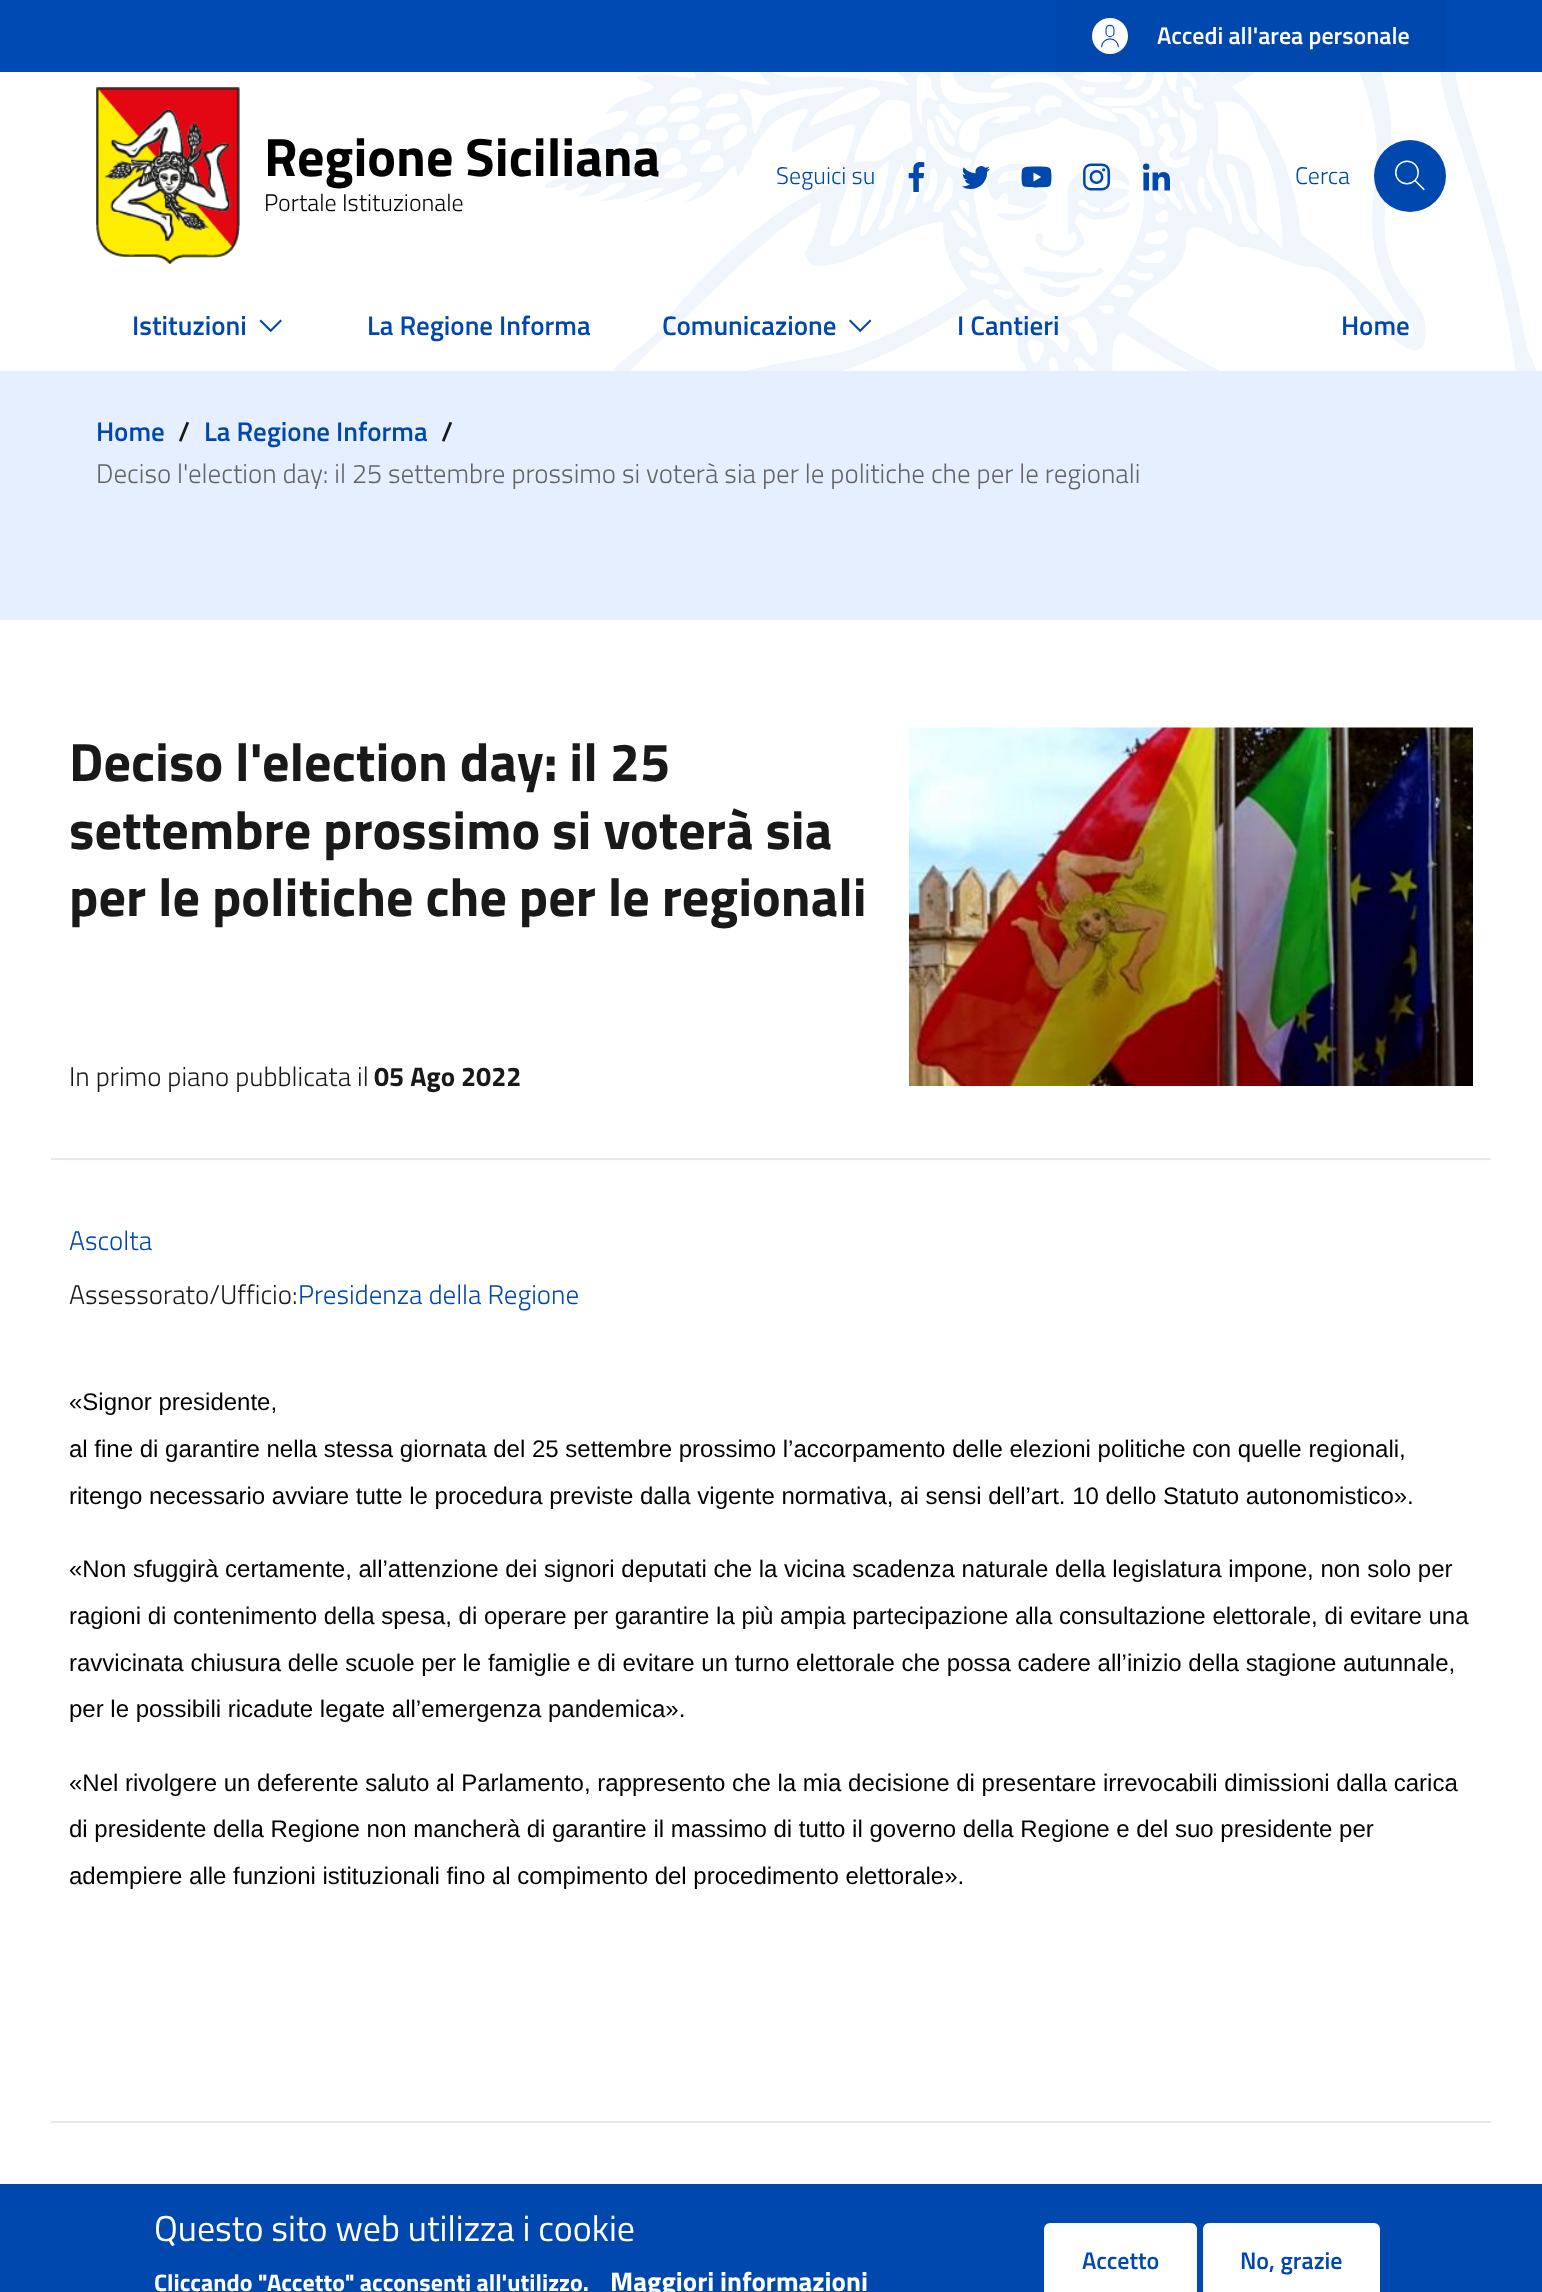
<!DOCTYPE html>
<meta charset="utf-8">
<style>body { margin: 0 } canvas { display: block }</style>
<canvas id="canvas" width="1542" height="2292"></canvas>
<img id="img1" src="img_01.png" hidden>
<img id="img2" src="img_02.png" hidden>
<img id="img3" src="img_03.png" hidden>
<img id="img4" src="img_04.png" hidden>
<img id="img5" src="img_05.png" hidden>
<img id="img6" src="img_06.png" hidden>
<img id="img7" src="img_07.png" hidden>
<img id="img8" src="img_08.png" hidden>
<img id="img9" src="img_09.png" hidden>
<img id="img10" src="img_10.png" hidden>
<img id="img11" src="img_11.png" hidden>
<img id="img12" src="img_12.png" hidden>
<script>
window.onload = function () {
	const canvas = document.getElementById("canvas");
	const ctx = canvas.getContext("2d");
	ctx.miterLimit = 4;
	ctx.fontKerning = "normal";
	function txt(s, x, y) {
		ctx.fillText(s, x, y);
	}
	function fill(x, y, w, h) {
		ctx.fillRect(x, y, w, h);
	}
	function img(id, x, y, w, h) {
		ctx.drawImage(document.getElementById(id), x, y, w, h);
	}

	ctx.fillStyle = "#FFFFFF";
	fill(0, 0, 1542, 2292);
	ctx.fillStyle = "#004AB3";
	fill(0, 0, 1542, 72);
	ctx.fillStyle = "#0048AD";
	fill(1056, 0, 390, 72);
	ctx.fillStyle = "#FFFFFF";
	ctx.beginPath();
	ctx.arc(1110, 36, 18, 0, Math.PI * 2);
	ctx.fill();
	img("img1", 1101, 24, 18, 24);
	img("img2", 545, 72, 991, 299);
	img("img3", 96, 87, 144, 177);
	img("img4", 908, 162, 17, 30);
	img("img5", 962, 166, 28, 23);
	img("img6", 1021, 166, 31, 22);
	img("img7", 1083, 163, 28, 28);
	img("img8", 1143, 163, 27, 28);
	ctx.fillStyle = "#0048AD";
	ctx.beginPath();
	ctx.arc(1410, 176, 36, 0, Math.PI * 2);
	ctx.fill();
	img("img9", 1395, 160, 30, 31);
	img("img10", 259, 319, 23, 14);
	img("img11", 849, 319, 23, 14);
	ctx.fillStyle = "#E6EFFF";
	fill(0, 371, 1542, 249);
	ctx.fillStyle = "#E9E6F2";
	fill(51, 1158, 1440, 2);
	img("img12", 909, 727, 564, 359);
	fill(51, 2121, 1440, 2);
	ctx.fillStyle = "#0048AD";
	fill(0, 2184, 1542, 108);
	ctx.fillStyle = "#FFFFFF";
	ctx.beginPath();
	ctx.roundRect(1045, 2224, 151, 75, 5);
	ctx.fill();
	ctx.strokeStyle = "#FFFFFF";
	ctx.lineWidth = 2;
	ctx.stroke();
	ctx.beginPath();
	ctx.roundRect(1204, 2224, 175, 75, 5);
	ctx.fill();
	ctx.stroke();
	ctx.font = "600 24px Titillium Web";
	txt("Accedi all'area personale", 1157, 44);
	ctx.font = "bold 54px Titillium Web";
	ctx.fillStyle = "#000000";
	txt("Regione Siciliana", 264, 176);
	ctx.font = "300 24px Titillium Web";
	txt("Portale Istituzionale", 264, 211);
	ctx.fillStyle = "#0048AD";
	txt("Seguici su", 776, 184);
	txt("Cerca", 1295, 184);
	ctx.font = "600 27px Titillium Web";
	txt("Istituzioni", 132, 335);
	txt("La Regione Informa", 367, 335);
	txt("Comunicazione", 662, 335);
	txt("I Cantieri", 957, 335);
	txt("Home", 1341, 335);
	txt("Home", 96, 441);
	ctx.fillStyle = "#19191A";
	txt("/", 178, 441);
	ctx.fillStyle = "#0048AD";
	txt("La Regione Informa", 204, 441);
	ctx.fillStyle = "#19191A";
	txt("/", 441, 441);
	ctx.font = "300 27px Titillium Web";
	ctx.fillStyle = "#656566";
	txt("Deciso l'election day: il 25 settembre prossimo si voterà sia per le politiche che per le regionali", 96, 483);
	ctx.font = "bold 54px Titillium Web";
	ctx.fillStyle = "#19191A";
	txt("Deciso l'election day: il 25", 69, 781);
	txt("settembre prossimo si voterà sia", 69, 849);
	txt("per le politiche che per le regionali", 69, 916);
	ctx.font = "300 27px Titillium Web";
	txt("In primo piano pubblicata il", 69, 1086);
	ctx.font = "bold 27px Titillium Web";
	txt("05 Ago 2022", 374, 1086);
	ctx.font = "300 27px Titillium Web";
	ctx.fillStyle = "#0048AD";
	txt("Ascolta", 69, 1250);
	ctx.fillStyle = "#19191A";
	txt("Assessorato/Ufficio:", 69, 1304);
	ctx.fillStyle = "#0048AD";
	txt("Presidenza della Regione", 298, 1304);
	ctx.font = "24px Liberation Sans";
	ctx.fillStyle = "#000000";
	txt("«Signor presidente,", 69, 1410);
	txt("al fine di garantire nella stessa giornata del 25 settembre prossimo l’accorpamento delle elezioni politiche con quelle regionali,", 69, 1457);
	txt("ritengo necessario avviare tutte le procedura previste dalla vigente normativa, ai sensi dell’art. 10 dello Statuto autonomistico».", 69, 1504);
	txt("«Non sfuggirà certamente, all’attenzione dei signori deputati che la vicina scadenza naturale della legislatura impone, non solo per", 69, 1577);
	txt("ragioni di contenimento della spesa, di operare per garantire la più ampia partecipazione alla consultazione elettorale, di evitare una", 69, 1624);
	txt("ravvicinata chiusura delle scuole per le famiglie e di evitare un turno elettorale che possa cadere all’inizio della stagione autunnale,", 69, 1671);
	txt("per le possibili ricadute legate all’emergenza pandemica».", 69, 1717);
	txt("«Nel rivolgere un deferente saluto al Parlamento, rappresento che la mia decisione di presentare irrevocabili dimissioni dalla carica", 69, 1791);
	txt("di presidente della Regione non mancherà di garantire il massimo di tutto il governo della Regione e del suo presidente per", 69, 1837);
	txt("adempiere alle funzioni istituzionali fino al compimento del procedimento elettorale».", 69, 1884);
	ctx.font = "36px Titillium Web";
	ctx.fillStyle = "#FFFFFF";
	txt("Questo sito web utilizza i cookie", 154, 2241);
	ctx.font = "bold 24px Titillium Web";
	txt("Cliccando \"Accetto\" acconsenti all'utilizzo.", 154, 2291);
	ctx.font = "bold 27px Titillium Web";
	txt("Maggiori informazioni", 610, 2291);
	ctx.font = "600 24px Titillium Web";
	ctx.fillStyle = "#0048AD";
	txt("Accetto", 1082, 2269);
	txt("No, grazie", 1240, 2269);
};
</script>
